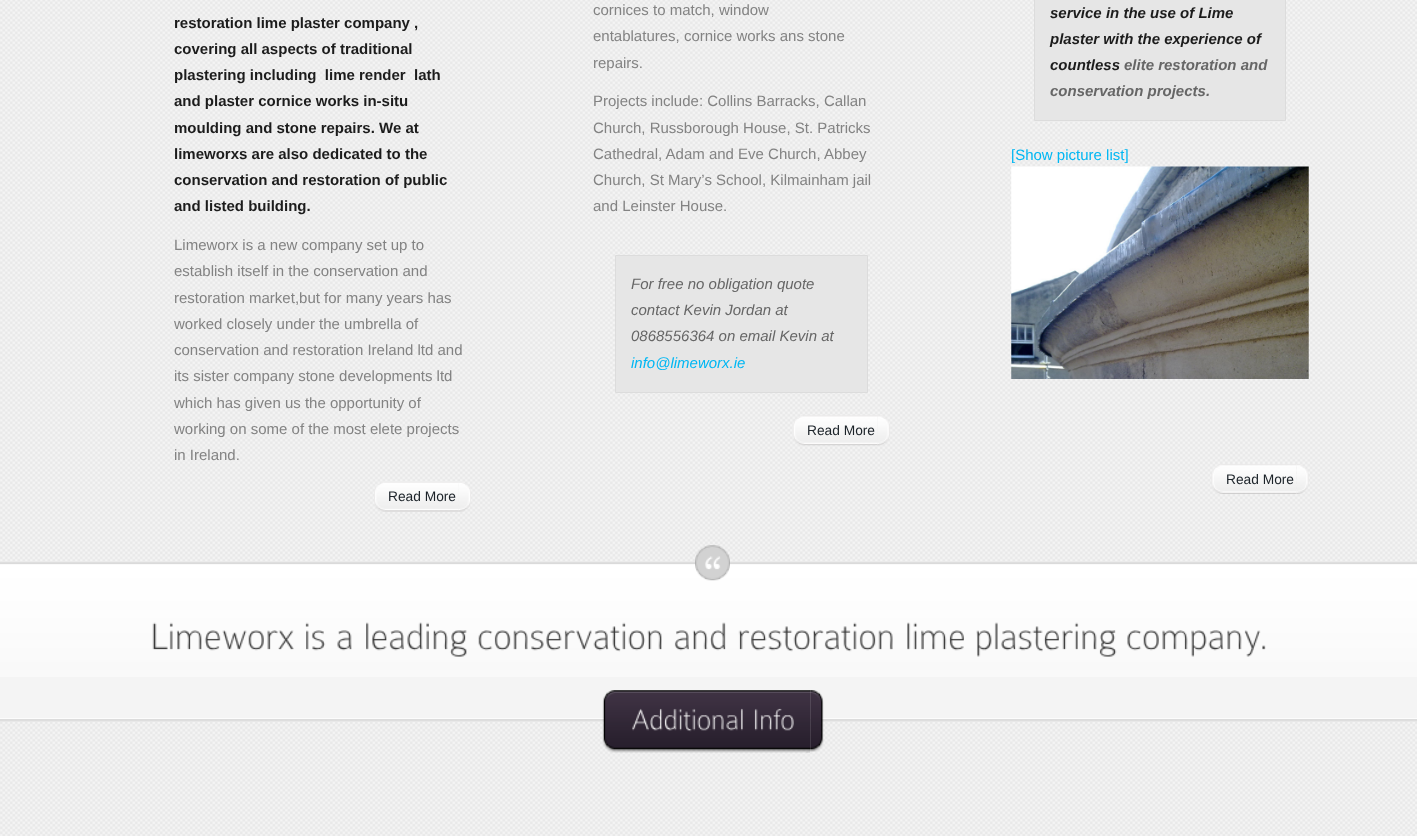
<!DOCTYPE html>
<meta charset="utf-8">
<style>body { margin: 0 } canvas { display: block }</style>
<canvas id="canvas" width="1417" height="836"></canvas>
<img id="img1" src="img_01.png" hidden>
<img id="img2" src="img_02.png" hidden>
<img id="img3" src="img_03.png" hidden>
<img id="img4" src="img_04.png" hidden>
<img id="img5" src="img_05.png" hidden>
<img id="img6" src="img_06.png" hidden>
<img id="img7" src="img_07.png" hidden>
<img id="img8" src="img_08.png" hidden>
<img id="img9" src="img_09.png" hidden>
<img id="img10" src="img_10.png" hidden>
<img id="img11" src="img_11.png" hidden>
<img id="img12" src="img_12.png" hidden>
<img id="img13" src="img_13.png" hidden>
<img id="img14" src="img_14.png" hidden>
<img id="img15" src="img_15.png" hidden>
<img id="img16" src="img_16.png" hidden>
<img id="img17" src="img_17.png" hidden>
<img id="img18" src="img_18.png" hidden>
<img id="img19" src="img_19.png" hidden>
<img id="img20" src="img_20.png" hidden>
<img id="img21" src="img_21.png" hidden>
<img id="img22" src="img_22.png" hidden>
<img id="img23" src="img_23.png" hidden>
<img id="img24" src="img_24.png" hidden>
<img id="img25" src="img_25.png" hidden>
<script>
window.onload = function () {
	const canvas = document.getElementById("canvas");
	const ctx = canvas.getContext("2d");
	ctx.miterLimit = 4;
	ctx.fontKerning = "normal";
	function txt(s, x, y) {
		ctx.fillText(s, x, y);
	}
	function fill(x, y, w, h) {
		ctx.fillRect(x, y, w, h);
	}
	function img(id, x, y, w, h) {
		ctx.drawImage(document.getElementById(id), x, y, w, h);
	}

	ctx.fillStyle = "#FFFFFF";
	fill(0, 0, 1417, 836);
	img("img1", 0, 0, 1417, 836);
	img("img2", 458, 482, 13, 30);
	img("img3", 374, 482, 85, 30);
	ctx.fillStyle = "#E6E6E6";
	ctx.beginPath();
	ctx.rect(615.5, 255.5, 252, 137);
	ctx.fill();
	ctx.strokeStyle = "#DCDCDC";
	ctx.stroke();
	img("img4", 877, 415, 13, 31);
	img("img5", 793, 415, 85, 31);
	ctx.beginPath();
	ctx.rect(1034.5, -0.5, 251, 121);
	ctx.fill();
	ctx.stroke();
	img("img6", 1011, 166, 298, 213);
	img("img7", 1296, 464, 13, 30);
	img("img8", 1211, 464, 85, 30);
	img("img9", 0, 718, 1417, 4);
	ctx.fillStyle = "#F4F4F4";
	fill(0, 561, 1417, 157);
	img("img10", 0, 561, 1417, 116);
	img("img11", 695, 545, 35, 36);
	img("img12", 152, 622, 142, 29);
	img("img13", 305, 622, 21, 29);
	img("img14", 337, 630, 15, 21);
	img("img15", 366, 622, 101, 35);
	img("img16", 478, 622, 184, 30);
	img("img17", 674, 622, 52, 29);
	img("img18", 738, 622, 155, 30);
	img("img19", 907, 622, 57, 29);
	img("img20", 976, 622, 141, 35);
	img("img21", 1127, 630, 139, 27);
	img("img22", 809, 690, 15, 62);
	img("img23", 602, 690, 208, 63);
	img("img24", 632, 708, 111, 24);
	img("img25", 754, 708, 40, 23);
	ctx.font = "bold 15px Liberation Sans";
	ctx.fillStyle = "#1C1C1C";
	txt("restoration lime plaster company ,", 174, 28);
	txt("covering all aspects of traditional", 174, 54);
	txt("plastering including  lime render  lath", 174, 80);
	txt("and plaster cornice works in-situ", 174, 106);
	txt("moulding and stone repairs. We at", 174, 133);
	txt("limeworxs are also dedicated to the", 174, 159);
	txt("conservation and restoration of public", 174, 185);
	txt("and listed building.", 174, 211);
	ctx.font = "15px Liberation Sans";
	ctx.fillStyle = "#838383";
	txt("Limeworx is a new company set up to", 174, 250);
	txt("establish itself in the conservation and", 174, 276);
	txt("restoration market,but for many years has", 174, 303);
	txt("worked closely under the umbrella of", 174, 329);
	txt("conservation and restoration Ireland ltd and", 174, 355);
	txt("its sister company stone developments ltd", 174, 381);
	txt("which has given us the opportunity of", 174, 408);
	txt("working on some of the most elete projects", 174, 434);
	txt("in Ireland.", 174, 460);
	ctx.font = "13.75px Liberation Sans";
	ctx.fillStyle = "#1C2329";
	txt("Read More", 388, 501);
	ctx.font = "15px Liberation Sans";
	ctx.fillStyle = "#838383";
	txt("cornices to match, window", 593, 15);
	txt("entablatures, cornice works ans stone", 593, 41);
	txt("repairs.", 593, 68);
	txt("Projects include: Collins Barracks, Callan", 593, 106);
	txt("Church, Russborough House, St. Patricks", 593, 133);
	txt("Cathedral, Adam and Eve Church, Abbey", 593, 159);
	txt("Church, St Mary’s School, Kilmainham jail", 593, 185);
	txt("and Leinster House.", 593, 211);
	ctx.font = "italic 15px Liberation Sans";
	ctx.fillStyle = "#666666";
	txt("For free no obligation quote", 631, 289);
	txt("contact Kevin Jordan at", 631, 315);
	txt("0868556364 on email Kevin at", 631, 341);
	ctx.fillStyle = "#00B7F3";
	txt("info@limeworx.ie", 631, 368);
	ctx.font = "13.75px Liberation Sans";
	ctx.fillStyle = "#1C2329";
	txt("Read More", 807, 435);
	ctx.font = "italic bold 15px Liberation Sans";
	ctx.fillStyle = "#1C1C1C";
	txt("service in the use of Lime", 1050, 18);
	txt("plaster with the experience of", 1050, 44);
	txt("countless", 1050, 70);
	ctx.fillStyle = "#666666";
	txt("elite restoration and", 1124, 70);
	txt("conservation projects.", 1050, 96);
	ctx.font = "15px Liberation Sans";
	ctx.fillStyle = "#00B7F3";
	txt("[Show picture list]", 1011, 160);
	ctx.font = "13.75px Liberation Sans";
	ctx.fillStyle = "#1C2329";
	txt("Read More", 1226, 484);
};
</script>
